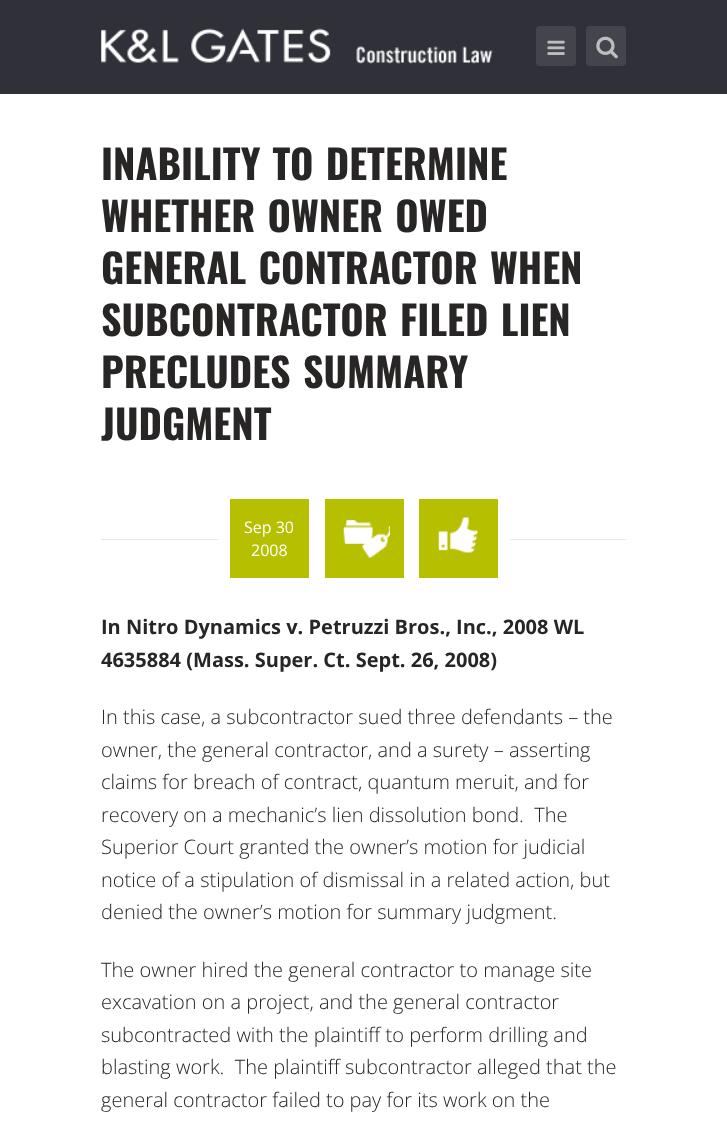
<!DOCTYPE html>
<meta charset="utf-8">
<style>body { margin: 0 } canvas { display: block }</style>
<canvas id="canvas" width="727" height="1129"></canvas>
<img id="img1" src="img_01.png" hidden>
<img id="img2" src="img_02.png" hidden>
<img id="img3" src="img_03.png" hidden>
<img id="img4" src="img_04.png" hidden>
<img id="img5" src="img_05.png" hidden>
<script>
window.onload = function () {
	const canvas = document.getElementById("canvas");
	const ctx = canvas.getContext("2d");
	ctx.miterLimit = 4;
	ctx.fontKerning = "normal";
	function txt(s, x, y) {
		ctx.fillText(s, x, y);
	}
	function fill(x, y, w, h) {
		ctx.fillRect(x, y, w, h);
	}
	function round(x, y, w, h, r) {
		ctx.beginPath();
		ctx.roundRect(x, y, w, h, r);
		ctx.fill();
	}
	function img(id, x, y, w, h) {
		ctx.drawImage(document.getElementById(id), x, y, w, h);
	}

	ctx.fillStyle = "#FFFFFF";
	fill(0, 0, 727, 1129);
	ctx.fillStyle = "#2F3038";
	fill(0, 0, 727, 94);
	img("img1", 101, 28, 392, 36);
	ctx.fillStyle = "#44454C";
	round(536, 26, 40, 40, 4);
	img("img2", 547, 40, 18, 15);
	round(586, 26, 40, 40, 4);
	img("img3", 596, 36, 22, 23);
	ctx.fillStyle = "#E8E8E8";
	fill(101, 539, 525, 1);
	ctx.fillStyle = "#FFFFFF";
	fill(218, 539, 292, 1);
	ctx.fillStyle = "#B6BF00";
	fill(230, 499, 79, 79);
	fill(325, 499, 79, 79);
	img("img4", 343, 519, 47, 39);
	fill(419, 499, 79, 79);
	img("img5", 438, 517, 40, 36);
	ctx.wordSpacing = "2px";
	ctx.font = "bold 40px Oswald";
	ctx.fillStyle = "#282525";
	txt("INABILITY TO DETERMINE", 101, 180);
	txt("WHETHER OWNER OWED", 101, 232);
	txt("GENERAL CONTRACTOR WHEN", 101, 284);
	txt("SUBCONTRACTOR FILED LIEN", 101, 336);
	txt("PRECLUDES SUMMARY", 101, 388);
	ctx.wordSpacing = "0px";
	txt("JUDGMENT", 101, 440);
	ctx.font = "16px Open Sans";
	ctx.fillStyle = "#FFFFFF";
	txt("Sep 30", 244, 533);
	txt("2008", 251, 556);
	ctx.font = "bold 20px Open Sans";
	ctx.fillStyle = "#282525";
	txt("In Nitro Dynamics v. Petruzzi Bros., Inc., 2008 WL", 101, 634);
	txt("4635884 (Mass. Super. Ct. Sept. 26, 2008)", 101, 667);
	ctx.font = "300 20px Open Sans";
	txt("In this case, a subcontractor sued three defendants – the", 101, 724);
	txt("owner, the general contractor, and a surety – asserting", 101, 757);
	txt("claims for breach of contract, quantum meruit, and for", 101, 789);
	txt("recovery on a mechanic’s lien dissolution bond.  The", 101, 822);
	txt("Superior Court granted the owner’s motion for judicial", 101, 854);
	txt("notice of a stipulation of dismissal in a related action, but", 101, 887);
	txt("denied the owner’s motion for summary judgment.", 101, 919);
	txt("The owner hired the general contractor to manage site", 101, 977);
	txt("excavation on a project, and the general contractor", 101, 1009);
	txt("subcontracted with the plaintiff to perform drilling and", 101, 1042);
	txt("blasting work.  The plaintiff subcontractor alleged that the", 101, 1074);
	txt("general contractor failed to pay for its work on the", 101, 1107);
};
</script>
